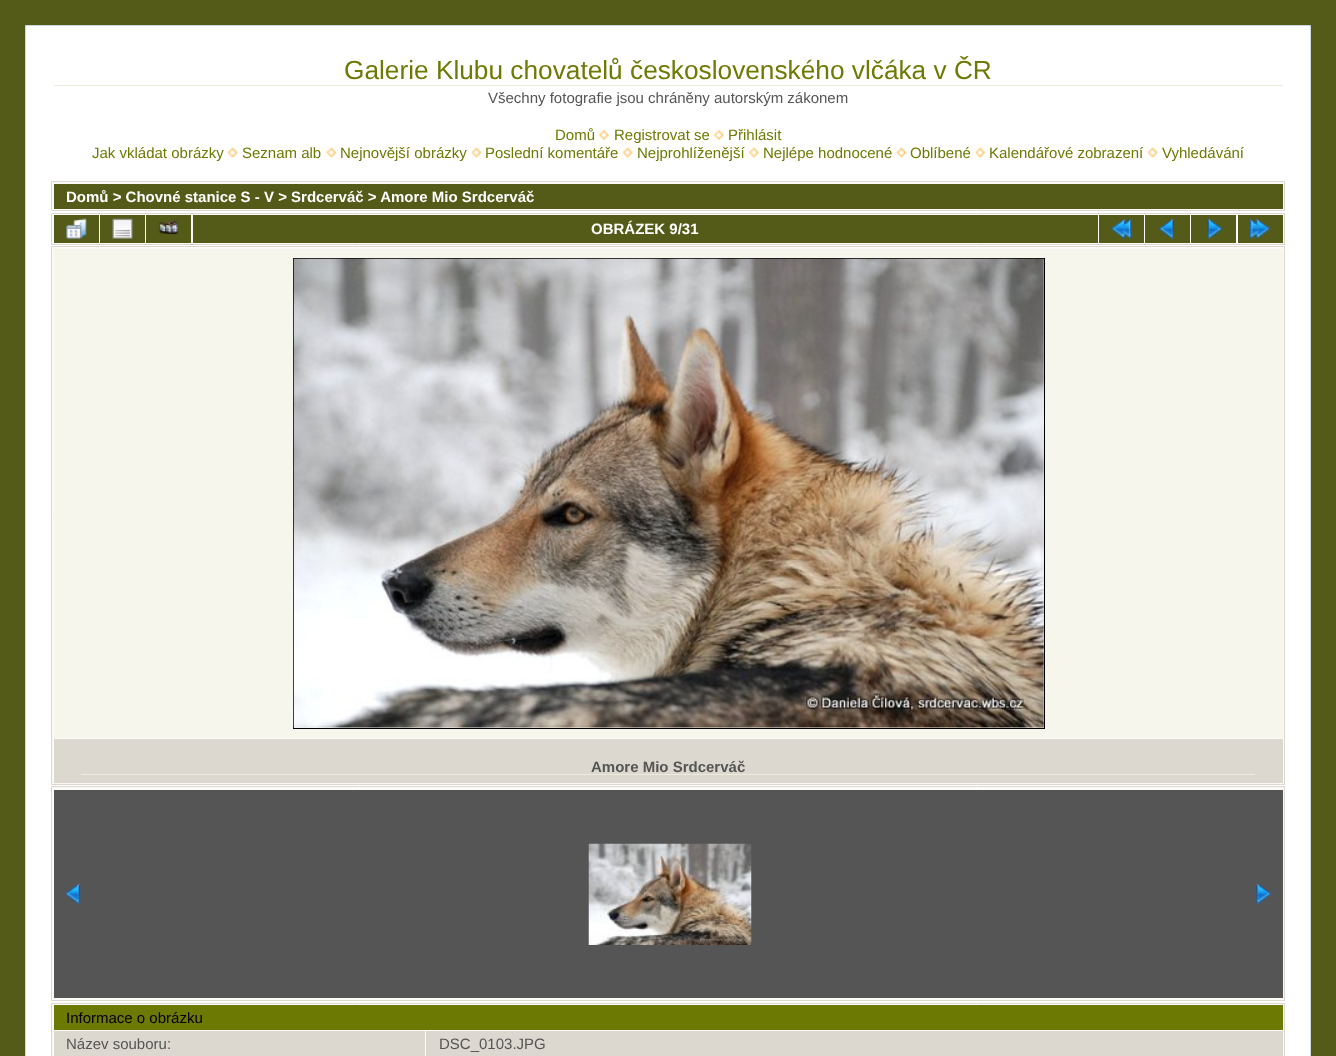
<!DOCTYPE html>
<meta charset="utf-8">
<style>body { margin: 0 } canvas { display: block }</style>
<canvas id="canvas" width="1336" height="1056"></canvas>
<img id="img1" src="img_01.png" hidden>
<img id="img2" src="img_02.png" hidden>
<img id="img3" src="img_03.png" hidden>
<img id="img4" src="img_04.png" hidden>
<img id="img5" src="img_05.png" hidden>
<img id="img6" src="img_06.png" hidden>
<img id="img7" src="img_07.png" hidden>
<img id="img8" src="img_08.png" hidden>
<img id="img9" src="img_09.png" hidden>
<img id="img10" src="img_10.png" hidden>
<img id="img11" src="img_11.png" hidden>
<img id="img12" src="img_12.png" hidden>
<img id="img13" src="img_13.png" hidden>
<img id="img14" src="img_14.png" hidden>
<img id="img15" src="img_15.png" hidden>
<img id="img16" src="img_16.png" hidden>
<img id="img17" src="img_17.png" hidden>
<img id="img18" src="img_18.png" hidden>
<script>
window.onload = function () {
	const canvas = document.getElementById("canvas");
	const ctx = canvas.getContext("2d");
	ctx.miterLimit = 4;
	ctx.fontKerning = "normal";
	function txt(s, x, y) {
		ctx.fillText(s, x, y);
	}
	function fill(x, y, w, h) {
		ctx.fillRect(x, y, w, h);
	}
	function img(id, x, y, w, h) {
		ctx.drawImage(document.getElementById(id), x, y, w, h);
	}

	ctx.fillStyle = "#545B18";
	fill(0, 0, 1336, 1056);
	ctx.fillStyle = "#FFFFFF";
	ctx.beginPath();
	ctx.rect(25.5, 25.5, 1285, 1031);
	ctx.fill();
	ctx.strokeStyle = "#CCD7E0";
	ctx.stroke();
	ctx.fillStyle = "#ECEADB";
	fill(54, 85, 1229, 1);
	img("img1", 598, 130, 11, 10);
	img("img2", 713, 130, 11, 10);
	img("img3", 227, 147, 11, 11);
	img("img4", 326, 147, 11, 11);
	img("img4", 471, 147, 11, 11);
	img("img3", 622, 147, 11, 11);
	img("img5", 748, 147, 11, 11);
	img("img4", 896, 147, 11, 11);
	img("img6", 975, 147, 10, 11);
	img("img7", 1147, 147, 11, 11);
	ctx.fillStyle = "#FBFAF7";
	ctx.beginPath();
	ctx.rect(51.5, 181.5, 1233, 29);
	ctx.fill();
	ctx.strokeStyle = "#DCD8CF";
	ctx.stroke();
	ctx.fillStyle = "#545B18";
	fill(54, 184, 1229, 25);
	ctx.fillStyle = "#FBFAF7";
	ctx.beginPath();
	ctx.rect(51.5, 213.5, 1233, 31);
	ctx.fill();
	ctx.stroke();
	ctx.fillStyle = "#545B18";
	fill(54, 215, 45, 28);
	img("img8", 66, 218, 21, 21);
	fill(100, 215, 45, 28);
	img("img9", 112, 218, 21, 21);
	fill(146, 215, 45, 28);
	img("img10", 158, 220, 21, 15);
	fill(193, 215, 905, 28);
	fill(1099, 215, 45, 28);
	img("img11", 1111, 218, 21, 21);
	fill(1145, 215, 45, 28);
	img("img12", 1158, 218, 16, 21);
	fill(1191, 215, 45, 28);
	img("img13", 1207, 218, 16, 21);
	fill(1238, 215, 45, 28);
	img("img14", 1250, 218, 20, 21);
	ctx.fillStyle = "#FBFAF7";
	ctx.beginPath();
	ctx.rect(51.5, 246.5, 1233, 538);
	ctx.fill();
	ctx.stroke();
	ctx.fillStyle = "#F6F6EC";
	fill(54, 249, 1229, 489);
	ctx.strokeStyle = "#000000";
	ctx.strokeRect(293.5, 258.5, 751, 470);
	img("img15", 293, 258, 751, 470);
	ctx.fillStyle = "#DCD8CF";
	fill(54, 739, 1229, 44);
	ctx.fillStyle = "#ECEADB";
	fill(81, 774, 1174, 1);
	ctx.fillStyle = "#FBFAF7";
	ctx.beginPath();
	ctx.rect(51.5, 786.5, 1233, 214);
	ctx.fill();
	ctx.strokeStyle = "#DCD8CF";
	ctx.stroke();
	ctx.fillStyle = "#555555";
	fill(54, 790, 1229, 208);
	img("img16", 65, 883, 16, 21);
	img("img17", 588, 843, 164, 102);
	img("img18", 1256, 883, 16, 21);
	ctx.fillStyle = "#FBFAF7";
	ctx.beginPath();
	ctx.rect(51.5, 1003.5, 1233, 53);
	ctx.fill();
	ctx.stroke();
	ctx.fillStyle = "#6C7903";
	fill(54, 1005, 1229, 25);
	ctx.fillStyle = "#DCD8CF";
	fill(54, 1031, 371, 25);
	fill(426, 1031, 857, 25);
	ctx.font = "26.25px Liberation Sans";
	ctx.fillStyle = "#6D7A03";
	txt("Galerie Klubu chovatelů československého vlčáka v ČR", 344, 79);
	ctx.font = "15px Liberation Sans";
	ctx.fillStyle = "#555555";
	txt("Všechny fotografie jsou chráněny autorským zákonem", 488, 103);
	ctx.fillStyle = "#6D7A03";
	txt("Domů", 555, 140);
	txt("Registrovat se", 614, 140);
	txt("Přihlásit", 728, 140);
	txt("Jak vkládat obrázky", 92, 158);
	txt("Seznam alb", 242, 158);
	txt("Nejnovější obrázky", 340, 158);
	txt("Poslední komentáře", 485, 158);
	txt("Nejprohlíženější", 637, 158);
	txt("Nejlépe hodnocené", 763, 158);
	txt("Oblíbené", 910, 158);
	txt("Kalendářové zobrazení", 989, 158);
	txt("Vyhledávání", 1162, 158);
	ctx.font = "bold 15px Liberation Sans";
	ctx.fillStyle = "#FFFFFF";
	txt("Domů > Chovné stanice S - V > Srdcerváč > Amore Mio Srdcerváč", 66, 202);
	txt("OBRÁZEK 9/31", 591, 234);
	ctx.fillStyle = "#555555";
	txt("Amore Mio Srdcerváč", 591, 772);
	ctx.font = "15px Liberation Sans";
	ctx.fillStyle = "#000000";
	txt("Informace o obrázku", 66, 1023);
	ctx.fillStyle = "#555555";
	txt("Název souboru:", 66, 1049);
	txt("DSC_0103.JPG", 439, 1049);
};
</script>
